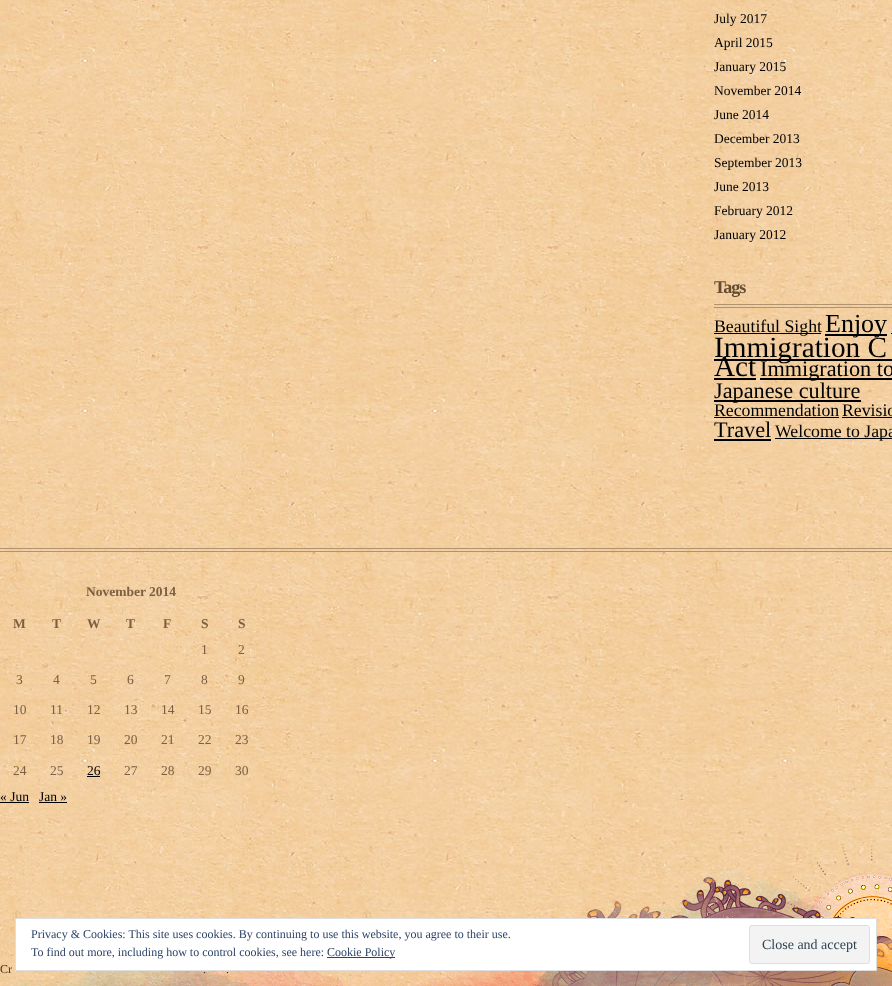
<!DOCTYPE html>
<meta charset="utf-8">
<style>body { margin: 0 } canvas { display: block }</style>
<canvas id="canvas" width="892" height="986"></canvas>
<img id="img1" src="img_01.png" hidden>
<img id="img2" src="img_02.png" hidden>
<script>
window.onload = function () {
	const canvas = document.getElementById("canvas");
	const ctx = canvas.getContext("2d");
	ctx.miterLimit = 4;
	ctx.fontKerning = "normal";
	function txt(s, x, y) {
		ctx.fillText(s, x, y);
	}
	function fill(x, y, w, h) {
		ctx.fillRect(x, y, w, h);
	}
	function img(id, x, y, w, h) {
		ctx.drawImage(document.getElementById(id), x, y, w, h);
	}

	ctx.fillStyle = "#FFFFFF";
	fill(0, 0, 892, 986);
	img("img1", 0, 0, 892, 986);
	ctx.fillStyle = "#B09370";
	fill(714, 304, 178, 1);
	fill(714, 307, 178, 1);
	ctx.fillStyle = "#000000";
	fill(714, 333, 107, 1);
	fill(825, 334, 62, 2);
	fill(891, 333, 1, 1);
	fill(714, 359, 178, 2);
	fill(714, 378, 42, 2);
	fill(760, 378, 132, 2);
	fill(714, 400, 147, 2);
	fill(714, 417, 125, 1);
	fill(842, 417, 50, 1);
	fill(714, 439, 57, 2);
	fill(775, 438, 117, 1);
	ctx.fillStyle = "#B09370";
	fill(0, 548, 892, 1);
	fill(0, 551, 892, 1);
	ctx.fillStyle = "#000000";
	fill(87, 776, 13, 1);
	fill(0, 802, 29, 1);
	fill(39, 802, 28, 1);
	img("img2", 0, 843, 892, 143);
	ctx.fillStyle = "#FFFFFF";
	ctx.beginPath();
	ctx.rect(15.5, 918.5, 861, 52);
	ctx.fill();
	ctx.strokeStyle = "#DEDEDE";
	ctx.stroke();
	ctx.fillStyle = "#2E4467";
	fill(327, 957, 68, 1);
	ctx.fillStyle = "#F3F3F3";
	ctx.beginPath();
	ctx.roundRect(749.5, 925.5, 120, 38, 2.5);
	ctx.fill();
	ctx.stroke();
	ctx.font = "13.5px Liberation Serif";
	ctx.fillStyle = "#000000";
	txt("July 2017", 714, 23);
	txt("April 2015", 714, 47);
	txt("January 2015", 714, 71);
	txt("November 2014", 714, 95);
	txt("June 2014", 714, 119);
	txt("December 2013", 714, 143);
	txt("September 2013", 714, 167);
	txt("June 2013", 714, 191);
	txt("February 2012", 714, 215);
	txt("January 2012", 714, 239);
	ctx.letterSpacing = "-1px";
	ctx.font = "bold 18px Liberation Serif";
	ctx.fillStyle = "#644C33";
	txt("Tags", 714, 293);
	ctx.letterSpacing = "0px";
	ctx.font = "17.75px Liberation Serif";
	ctx.fillStyle = "#000000";
	txt("Beautiful Sight", 714, 332);
	ctx.font = "26px Liberation Serif";
	txt("Enjoy", 825, 332);
	ctx.font = "29.25px Liberation Serif";
	txt("Immigration C", 714, 357);
	txt("Act", 714, 376);
	ctx.font = "22.25px Liberation Serif";
	txt("Immigration to", 760, 376);
	txt("Japanese culture", 714, 398);
	ctx.font = "17.75px Liberation Serif";
	txt("Recommendation", 714, 416);
	txt("Revisio", 842, 416);
	ctx.font = "22.25px Liberation Serif";
	txt("Travel", 714, 437);
	ctx.font = "17.75px Liberation Serif";
	txt("Welcome to Japa", 775, 437);
	ctx.font = "bold 13.5px Liberation Serif";
	ctx.fillStyle = "#7B6043";
	txt("November 2014", 86, 596);
	txt("M", 13, 628);
	txt("T", 52, 628);
	txt("W", 87, 628);
	txt("T", 126, 628);
	txt("F", 163, 628);
	txt("S", 201, 628);
	txt("S", 238, 628);
	ctx.font = "13.5px Liberation Serif";
	txt("1", 201, 654);
	txt("2", 238, 654);
	txt("3", 16, 684);
	txt("4", 53, 684);
	txt("5", 90, 684);
	txt("6", 127, 684);
	txt("7", 164, 684);
	txt("8", 201, 684);
	txt("9", 238, 684);
	txt("10", 13, 714);
	txt("11", 50, 714);
	txt("12", 87, 714);
	txt("13", 124, 714);
	txt("14", 161, 714);
	txt("15", 198, 714);
	txt("16", 235, 714);
	txt("17", 13, 744);
	txt("18", 50, 744);
	txt("19", 87, 744);
	txt("20", 124, 744);
	txt("21", 161, 744);
	txt("22", 198, 744);
	txt("23", 235, 744);
	txt("24", 13, 775);
	txt("25", 50, 775);
	ctx.fillStyle = "#000000";
	txt("26", 87, 775);
	ctx.fillStyle = "#7B6043";
	txt("27", 124, 775);
	txt("28", 161, 775);
	txt("29", 198, 775);
	txt("30", 235, 775);
	ctx.fillStyle = "#000000";
	txt("« Jun", 0, 801);
	txt("Jan »", 39, 801);
	ctx.font = "12px Liberation Serif";
	ctx.fillStyle = "#453320";
	txt("Cr", 0, 973);
	txt(".", 203, 973);
	txt(".", 226, 973);
	ctx.fillStyle = "#2E4467";
	txt("Privacy & Cookies: This site uses cookies. By continuing to use this website, you agree to their use.", 31, 938);
	txt("To find out more, including how to control cookies, see here:", 31, 956);
	txt("Cookie Policy", 327, 956);
	ctx.font = "14px Liberation Serif";
	ctx.fillStyle = "#2E4453";
	txt("Close and accept", 762, 949);
};
</script>
